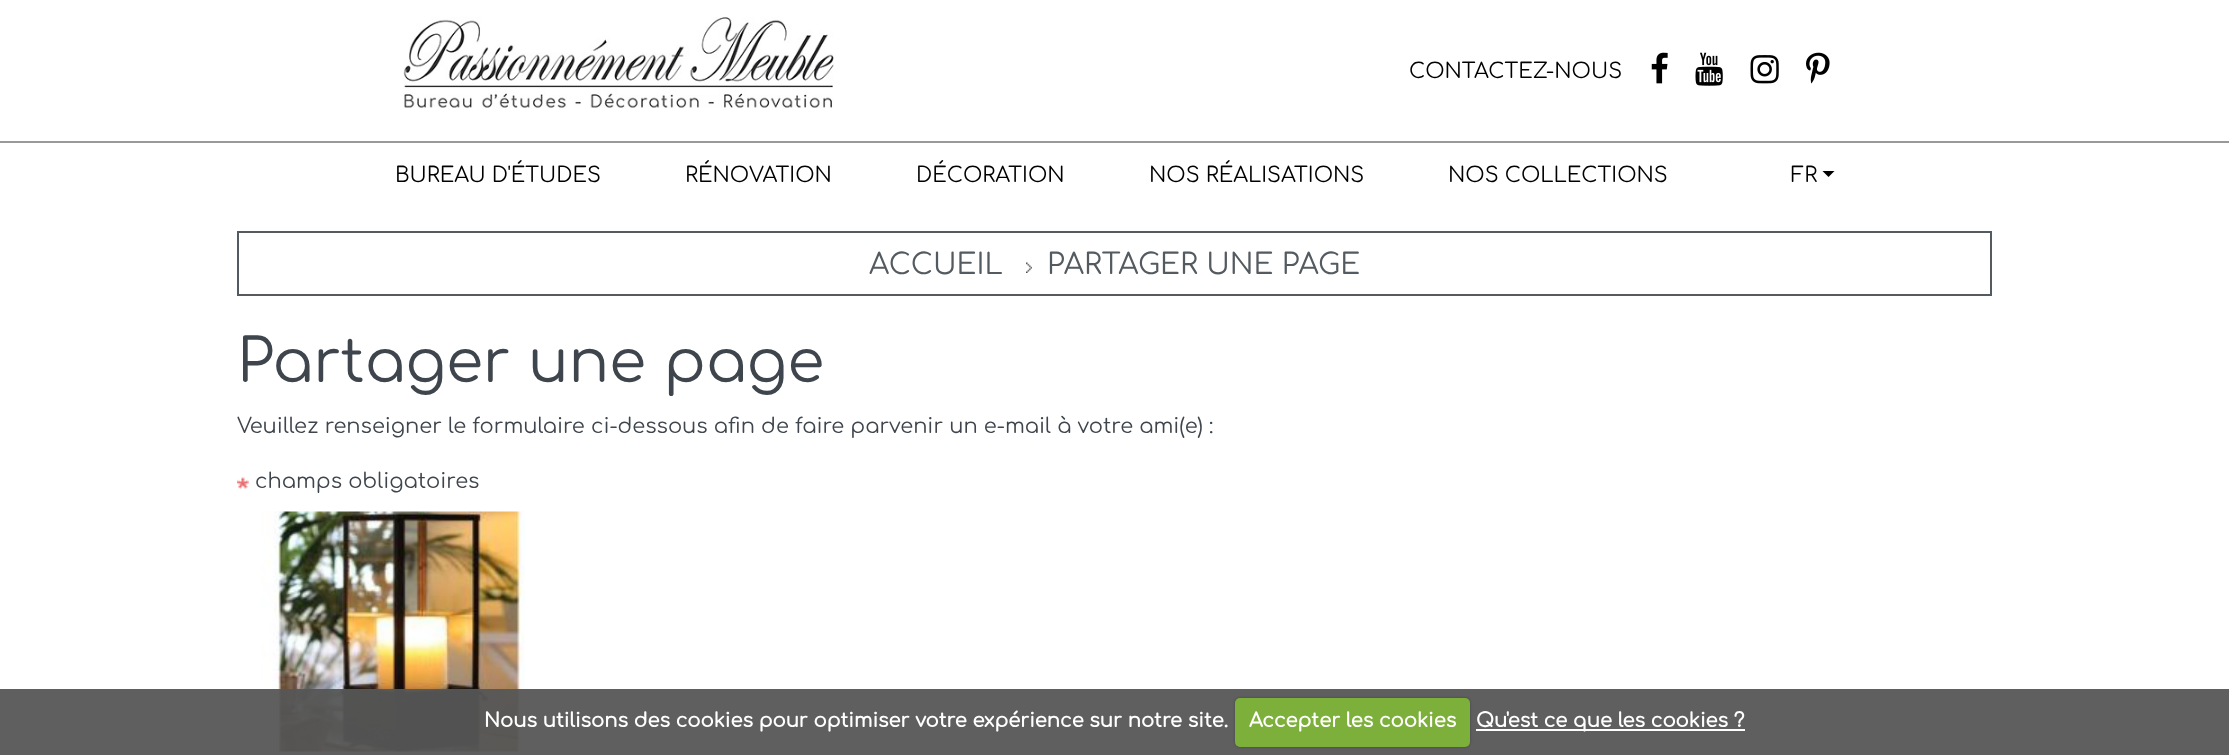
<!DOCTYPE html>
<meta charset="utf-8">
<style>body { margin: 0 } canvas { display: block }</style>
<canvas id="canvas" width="2229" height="755"></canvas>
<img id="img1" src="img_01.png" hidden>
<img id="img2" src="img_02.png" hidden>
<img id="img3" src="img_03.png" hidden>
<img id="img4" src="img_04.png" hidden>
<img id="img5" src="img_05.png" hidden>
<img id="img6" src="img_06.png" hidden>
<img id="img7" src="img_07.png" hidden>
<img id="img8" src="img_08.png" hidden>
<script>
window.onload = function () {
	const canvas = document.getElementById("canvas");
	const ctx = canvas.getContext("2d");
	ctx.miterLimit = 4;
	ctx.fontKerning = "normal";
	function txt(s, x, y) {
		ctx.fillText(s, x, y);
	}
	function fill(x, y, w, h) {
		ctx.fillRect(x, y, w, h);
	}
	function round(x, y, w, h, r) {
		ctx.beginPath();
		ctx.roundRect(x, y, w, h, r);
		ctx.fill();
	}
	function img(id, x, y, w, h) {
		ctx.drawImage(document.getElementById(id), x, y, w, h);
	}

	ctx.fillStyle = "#FFFFFF";
	fill(0, 0, 2229, 755);
	ctx.fillStyle = "#999999";
	fill(0, 141, 2229, 2);
	img("img1", 403, 17, 431, 91);
	img("img2", 1651, 52, 17, 32);
	img("img3", 1695, 52, 28, 34);
	img("img4", 1750, 55, 29, 29);
	img("img5", 1806, 52, 24, 32);
	ctx.fillStyle = "#000000";
	ctx.beginPath();
	ctx.moveTo(1822.5, 171);
	ctx.lineTo(1834.5, 171);
	ctx.lineTo(1828.5, 177);
	ctx.closePath();
	ctx.fill();
	ctx.strokeStyle = "#535A60";
	ctx.lineWidth = 2;
	ctx.strokeRect(238, 232, 1753, 63);
	img("img6", 1026, 262, 6, 11);
	img("img7", 237, 477, 12, 12);
	img("img8", 261, 511, 264, 241);
	ctx.fillStyle = "rgba(86, 86, 86, 0.95)";
	fill(0, 689, 2229, 66);
	ctx.fillStyle = "rgba(0, 0, 0, 0.25)";
	ctx.filter = "blur(1.5px)";
	ctx.beginPath();
	ctx.roundRect(1235, 698, 235, 49, 5);
	ctx.fill();
	ctx.filter = "none";
	ctx.fillStyle = "#7DAF3B";
	round(1235, 698, 235, 49, 5);
	ctx.fillStyle = "#FFFFFF";
	fill(1476, 729, 269, 2);
	ctx.font = "21px Comfortaa";
	ctx.fillStyle = "#000000";
	txt("CONTACTEZ-NOUS", 1409, 78);
	txt("BUREAU D'ÉTUDES", 395, 182);
	txt("RÉNOVATION", 685, 182);
	txt("DÉCORATION", 916, 182);
	txt("NOS RÉALISATIONS", 1149, 182);
	txt("NOS COLLECTIONS", 1448, 182);
	txt("FR", 1791, 182);
	ctx.font = "28.75px Comfortaa";
	ctx.fillStyle = "#535A60";
	txt("ACCUEIL", 869, 274);
	txt("PARTAGER UNE PAGE", 1047, 274);
	ctx.font = "60px Comfortaa";
	ctx.fillStyle = "#3E454C";
	txt("Partager une page", 237, 382);
	ctx.font = "21px Comfortaa";
	txt("Veuillez renseigner le formulaire ci-dessous afin de faire parvenir un e-mail à votre ami(e) :", 237, 433);
	txt("champs obligatoires", 255, 488);
	ctx.font = "bold 19.5px Comfortaa";
	ctx.fillStyle = "#FFFFFF";
	txt("Nous utilisons des cookies pour optimiser votre expérience sur notre site.", 484, 727);
	txt("Accepter les cookies", 1249, 727);
	txt("Qu'est ce que les cookies ?", 1476, 727);
};
</script>
